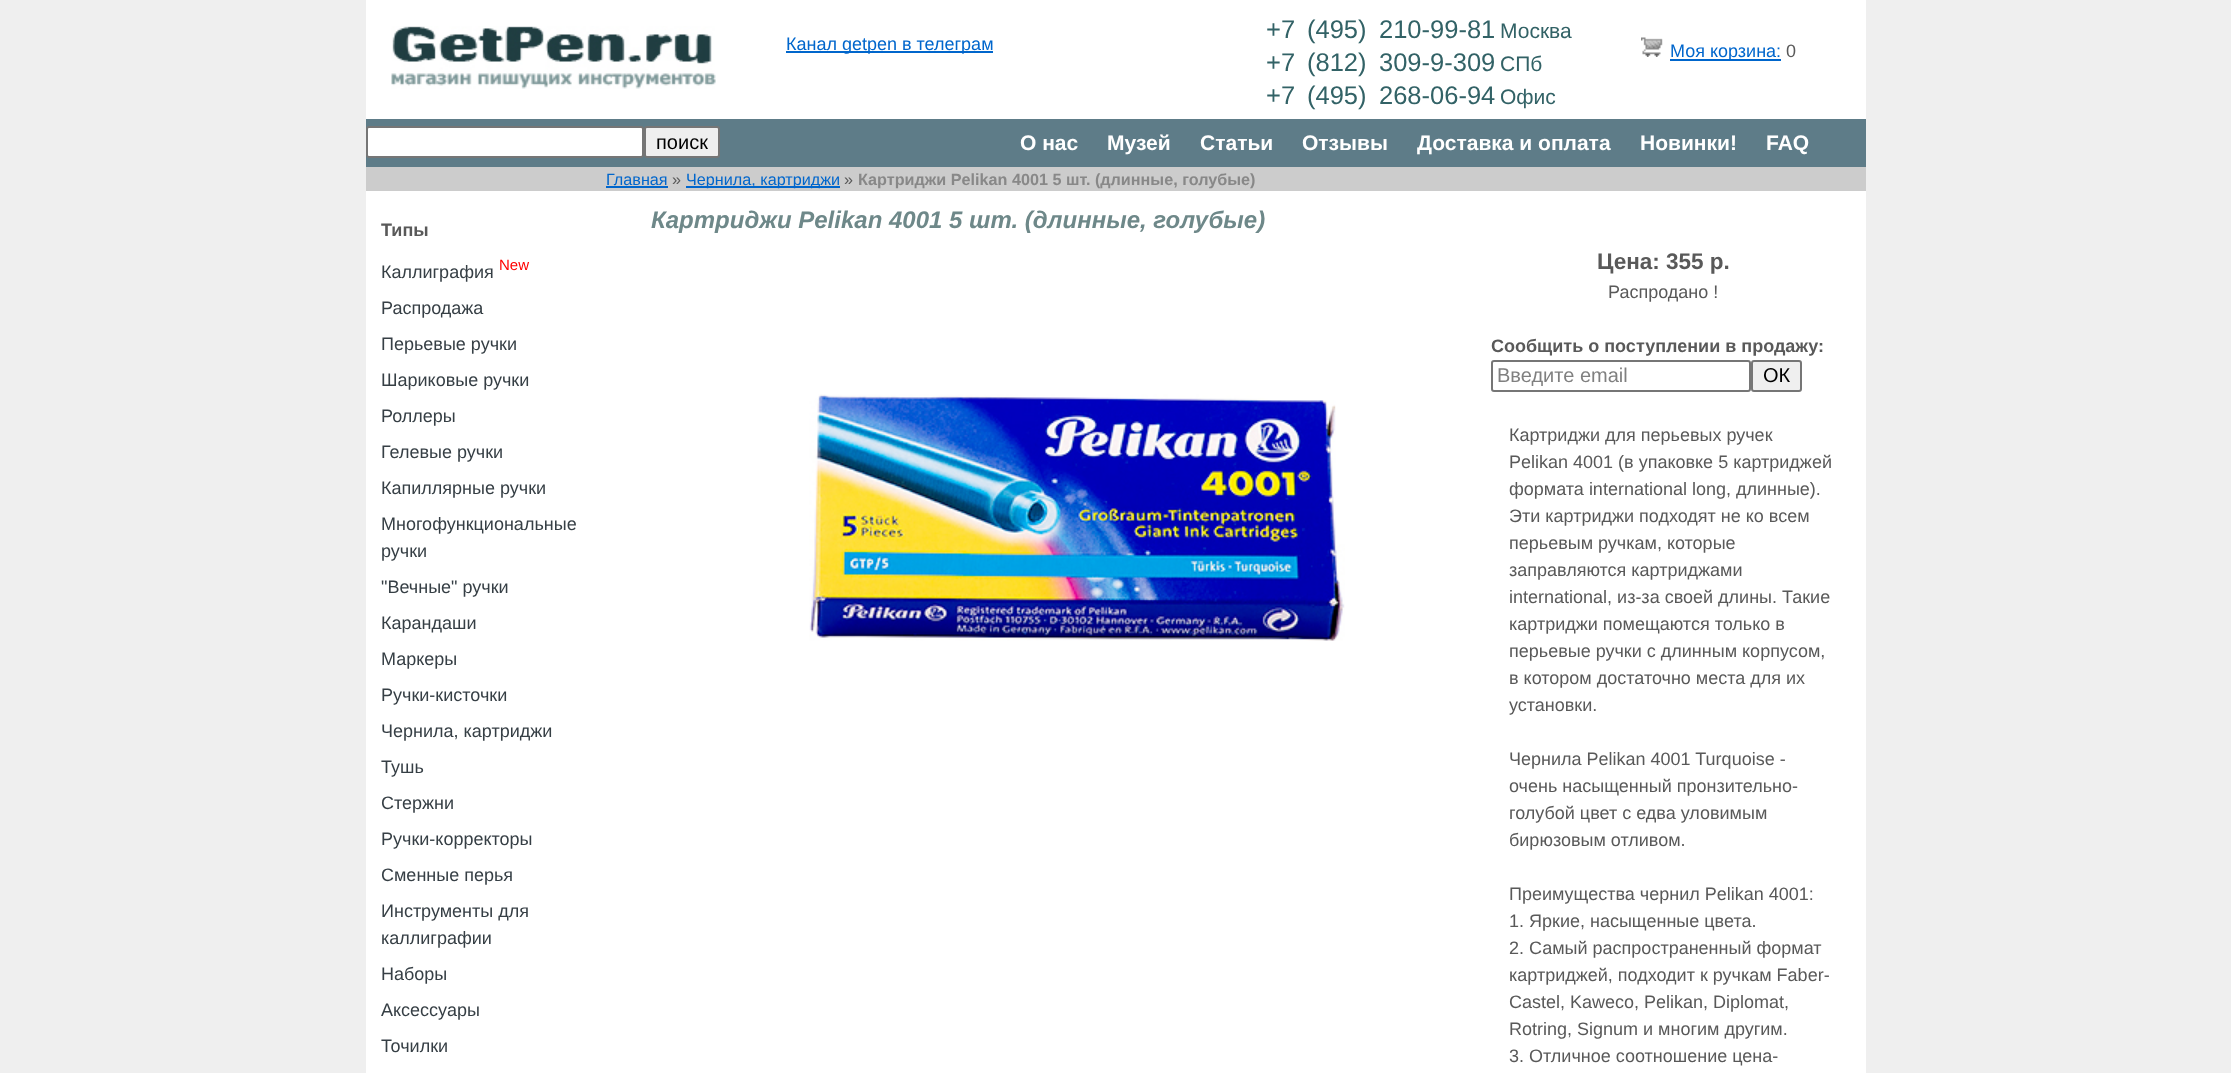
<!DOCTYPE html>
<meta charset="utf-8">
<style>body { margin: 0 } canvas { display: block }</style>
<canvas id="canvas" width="2231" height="1073"></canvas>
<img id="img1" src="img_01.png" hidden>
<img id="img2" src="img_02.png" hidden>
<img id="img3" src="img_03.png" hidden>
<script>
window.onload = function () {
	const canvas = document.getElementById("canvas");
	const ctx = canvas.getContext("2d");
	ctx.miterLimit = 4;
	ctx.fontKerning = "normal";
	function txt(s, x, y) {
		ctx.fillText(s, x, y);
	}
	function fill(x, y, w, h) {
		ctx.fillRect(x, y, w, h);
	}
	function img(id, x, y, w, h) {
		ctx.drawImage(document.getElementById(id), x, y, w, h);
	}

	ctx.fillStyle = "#EFEFEF";
	fill(0, 0, 2231, 1073);
	ctx.fillStyle = "#FFFFFF";
	fill(366, 0, 1500, 1073);
	img("img1", 391, 26, 325, 63);
	ctx.fillStyle = "#0066CC";
	fill(786, 51, 207, 2);
	img("img2", 1641, 37, 22, 20);
	fill(1670, 59, 111, 2);
	ctx.fillStyle = "#5E7C88";
	fill(366, 119, 1500, 48);
	ctx.fillStyle = "#FFFFFF";
	ctx.beginPath();
	ctx.roundRect(367, 127, 276, 30, 2);
	ctx.fill();
	ctx.strokeStyle = "#767676";
	ctx.lineWidth = 2;
	ctx.stroke();
	ctx.fillStyle = "#EFEFEF";
	ctx.beginPath();
	ctx.roundRect(645, 127, 74, 30, 2);
	ctx.fill();
	ctx.stroke();
	ctx.fillStyle = "#CCCCCC";
	fill(366, 167, 1500, 24);
	ctx.fillStyle = "#0066CC";
	fill(606, 186, 62, 2);
	fill(686, 186, 154, 2);
	ctx.beginPath();
	ctx.roundRect(1492, 361, 258, 30, 2);
	ctx.stroke();
	ctx.fillStyle = "#EFEFEF";
	ctx.beginPath();
	ctx.roundRect(1752, 361, 49, 30, 2);
	ctx.fill();
	ctx.stroke();
	img("img3", 809, 394, 536, 247);
	ctx.font = "18px Liberation Sans";
	ctx.fillStyle = "#0066CC";
	txt("Канал getpen в телеграм", 786, 50);
	ctx.font = "25.5px Liberation Sans";
	ctx.fillStyle = "#326266";
	txt("+7", 1266, 38);
	txt("(495)", 1307, 38);
	txt("210-99-81", 1379, 38);
	ctx.font = "21px Liberation Sans";
	txt("Москва", 1500, 38);
	ctx.font = "25.5px Liberation Sans";
	txt("+7", 1266, 71);
	txt("(812)", 1307, 71);
	txt("309-9-309", 1379, 71);
	ctx.font = "21px Liberation Sans";
	txt("СПб", 1500, 71);
	ctx.font = "25.5px Liberation Sans";
	txt("+7", 1266, 104);
	txt("(495)", 1307, 104);
	txt("268-06-94", 1379, 104);
	ctx.font = "21px Liberation Sans";
	txt("Офис", 1500, 104);
	ctx.font = "18px Liberation Sans";
	ctx.fillStyle = "#0066CC";
	txt("Моя корзина:", 1670, 57);
	ctx.fillStyle = "#595959";
	txt("0", 1786, 57);
	ctx.font = "20px Liberation Sans";
	ctx.fillStyle = "#000000";
	txt("поиск", 656, 149);
	ctx.font = "bold 21px Liberation Sans";
	ctx.fillStyle = "#FFFFFF";
	txt("О нас", 1020, 150);
	txt("Музей", 1107, 150);
	txt("Статьи", 1200, 150);
	txt("Отзывы", 1302, 150);
	txt("Доставка и оплата", 1417, 150);
	txt("Новинки!", 1640, 150);
	txt("FAQ", 1766, 150);
	ctx.font = "16.2px Liberation Sans";
	ctx.fillStyle = "#0066CC";
	txt("Главная", 606, 185);
	ctx.fillStyle = "#595959";
	txt("»", 672, 185);
	ctx.fillStyle = "#0066CC";
	txt("Чернила, картриджи", 686, 185);
	ctx.fillStyle = "#595959";
	txt("»", 844, 185);
	ctx.font = "bold 16.2px Liberation Sans";
	ctx.fillStyle = "#888888";
	txt("Картриджи Pelikan 4001 5 шт. (длинные, голубые)", 858, 185);
	ctx.font = "bold 18px Liberation Sans";
	ctx.fillStyle = "#595959";
	txt("Типы", 381, 236);
	ctx.font = "18px Liberation Sans";
	ctx.fillStyle = "#363F45";
	txt("Каллиграфия", 381, 278);
	ctx.font = "15px Liberation Sans";
	ctx.fillStyle = "#FF0000";
	txt("New", 499, 270);
	ctx.font = "18px Liberation Sans";
	ctx.fillStyle = "#363F45";
	txt("Распродажа", 381, 314);
	txt("Перьевые ручки", 381, 350);
	txt("Шариковые ручки", 381, 386);
	txt("Роллеры", 381, 422);
	txt("Гелевые ручки", 381, 458);
	txt("Капиллярные ручки", 381, 494);
	txt("Многофункциональные", 381, 530);
	txt("ручки", 381, 557);
	txt("\"Вечные\" ручки", 381, 593);
	txt("Карандаши", 381, 629);
	txt("Маркеры", 381, 665);
	txt("Ручки-кисточки", 381, 701);
	txt("Чернила, картриджи", 381, 737);
	txt("Тушь", 381, 773);
	txt("Стержни", 381, 809);
	txt("Ручки-корректоры", 381, 845);
	txt("Сменные перья", 381, 881);
	txt("Инструменты для", 381, 917);
	txt("каллиграфии", 381, 944);
	txt("Наборы", 381, 980);
	txt("Аксессуары", 381, 1016);
	txt("Точилки", 381, 1052);
	ctx.font = "italic bold 24px Liberation Sans";
	ctx.fillStyle = "#6E8889";
	txt("Картриджи Pelikan 4001 5 шт. (длинные, голубые)", 651, 228);
	ctx.font = "bold 22.5px Liberation Sans";
	ctx.fillStyle = "#595959";
	txt("Цена: 355 р.", 1597, 269);
	ctx.font = "18px Liberation Sans";
	txt("Распродано !", 1608, 298);
	ctx.font = "bold 18px Liberation Sans";
	txt("Сообщить о поступлении в продажу:", 1491, 352);
	ctx.font = "20px Liberation Sans";
	ctx.fillStyle = "#808080";
	txt("Введите email", 1497, 382);
	ctx.fillStyle = "#000000";
	txt("ОК", 1763, 382);
	ctx.font = "18px Liberation Sans";
	ctx.fillStyle = "#595959";
	txt("Картриджи для перьевых ручек", 1509, 441);
	txt("Pelikan 4001 (в упаковке 5 картриджей", 1509, 468);
	txt("формата international long, длинные).", 1509, 495);
	txt("Эти картриджи подходят не ко всем", 1509, 522);
	txt("перьевым ручкам, которые", 1509, 549);
	txt("заправляются картриджами", 1509, 576);
	txt("international, из-за своей длины. Такие", 1509, 603);
	txt("картриджи помещаются только в", 1509, 630);
	txt("перьевые ручки с длинным корпусом,", 1509, 657);
	txt("в котором достаточно места для их", 1509, 684);
	txt("установки.", 1509, 711);
	txt("Чернила Pelikan 4001 Turquoise -", 1509, 765);
	txt("очень насыщенный пронзительно-", 1509, 792);
	txt("голубой цвет с едва уловимым", 1509, 819);
	txt("бирюзовым отливом.", 1509, 846);
	txt("Преимущества чернил Pelikan 4001:", 1509, 900);
	txt("1. Яркие, насыщенные цвета.", 1509, 927);
	txt("2. Самый распространенный формат", 1509, 954);
	txt("картриджей, подходит к ручкам Faber-", 1509, 981);
	txt("Castel, Kaweco, Pelikan, Diplomat,", 1509, 1008);
	txt("Rotring, Signum и многим другим.", 1509, 1035);
	txt("3. Отличное соотношение цена-", 1509, 1062);
};
</script>
